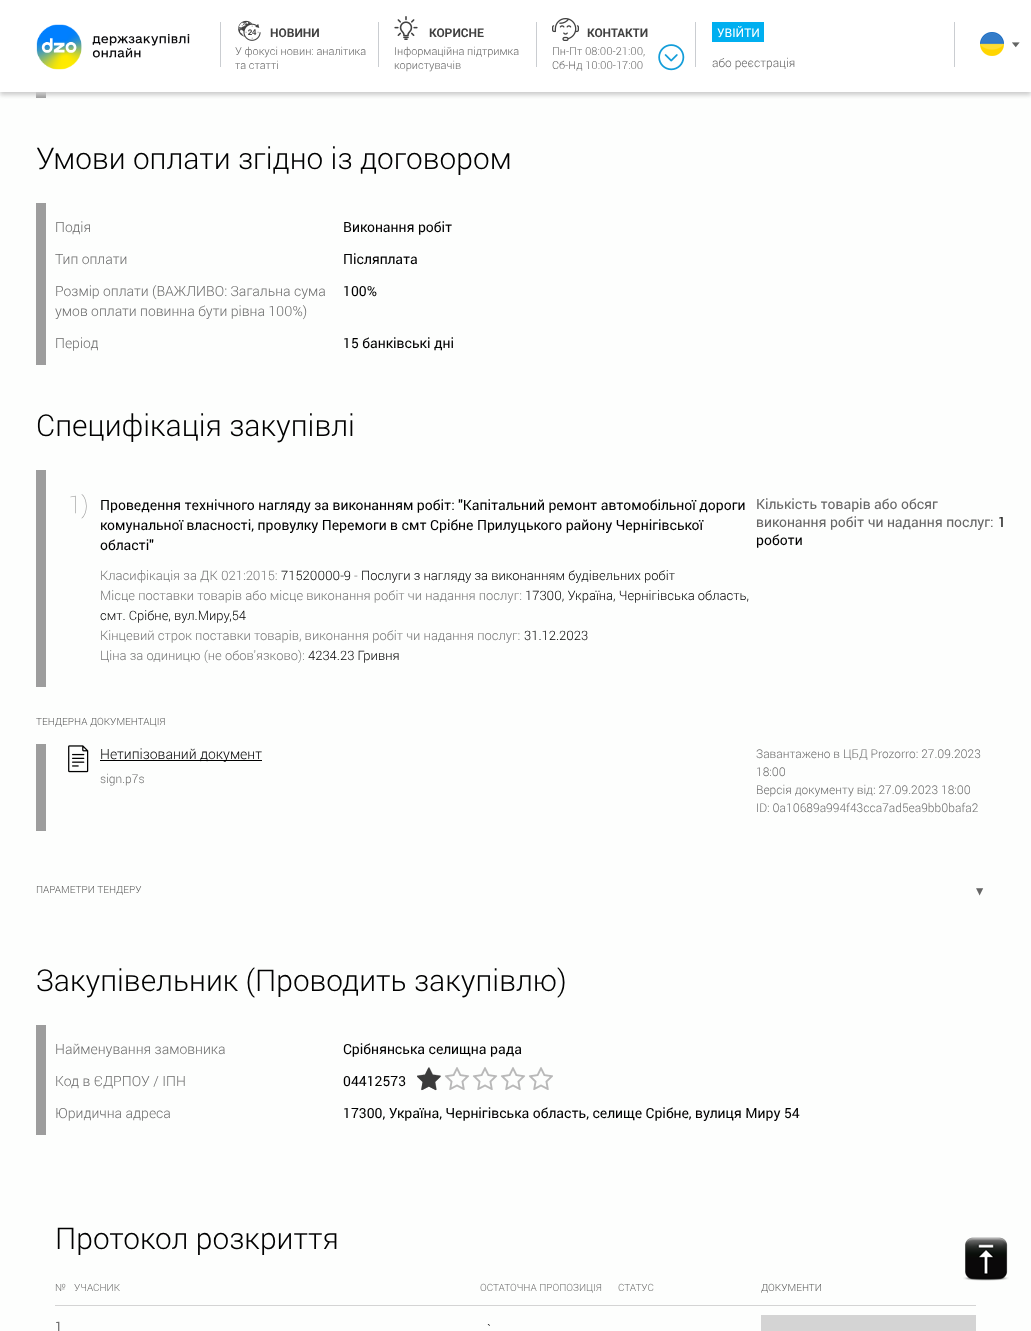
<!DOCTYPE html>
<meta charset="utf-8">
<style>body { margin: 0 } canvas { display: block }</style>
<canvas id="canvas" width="1031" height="1331"></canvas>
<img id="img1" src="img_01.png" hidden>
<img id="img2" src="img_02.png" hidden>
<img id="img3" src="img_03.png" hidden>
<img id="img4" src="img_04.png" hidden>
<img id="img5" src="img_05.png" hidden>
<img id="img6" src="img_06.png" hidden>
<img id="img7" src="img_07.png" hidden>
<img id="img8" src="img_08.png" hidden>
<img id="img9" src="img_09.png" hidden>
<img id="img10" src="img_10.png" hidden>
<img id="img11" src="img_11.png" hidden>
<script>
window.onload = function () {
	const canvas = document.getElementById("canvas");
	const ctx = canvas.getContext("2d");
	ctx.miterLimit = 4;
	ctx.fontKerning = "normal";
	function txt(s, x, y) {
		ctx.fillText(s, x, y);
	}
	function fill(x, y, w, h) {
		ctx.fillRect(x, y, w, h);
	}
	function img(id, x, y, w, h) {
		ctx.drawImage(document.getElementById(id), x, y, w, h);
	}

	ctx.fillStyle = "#FDFEFD";
	fill(0, 0, 1031, 1331);
	ctx.fillStyle = "#9D9D9D";
	fill(36, 92, 10, 6);
	ctx.fillStyle = "#CCCCCC";
	ctx.filter = "blur(2px)";
	ctx.beginPath();
	ctx.rect(0, 3, 1031, 92);
	ctx.fill();
	ctx.filter = "none";
	ctx.fillStyle = "#FFFFFF";
	fill(0, 0, 1031, 92);
	img("img1", 36, 24, 154, 46);
	ctx.fillStyle = "#CACDD1";
	fill(220, 22, 1, 45);
	img("img2", 238, 20, 23, 21);
	fill(378, 22, 1, 45);
	img("img3", 394, 16, 24, 24);
	fill(536, 22, 1, 45);
	img("img4", 552, 18, 27, 23);
	fill(695, 22, 1, 45);
	img("img5", 658, 44, 27, 27);
	ctx.fillStyle = "#00AFF0";
	fill(712, 22, 52, 20);
	ctx.fillStyle = "#CACDD1";
	fill(954, 22, 1, 45);
	img("img6", 1012, 42, 8, 6);
	img("img7", 980, 32, 24, 24);
	ctx.fillStyle = "#9D9D9D";
	fill(36, 203, 10, 162);
	fill(36, 470, 10, 217);
	fill(36, 744, 10, 87);
	img("img8", 68, 745, 21, 28);
	ctx.fillStyle = "#000000";
	fill(100, 760, 162, 1);
	ctx.fillStyle = "#9D9D9D";
	fill(36, 1025, 10, 110);
	img("img9", 417, 1067, 136, 23);
	img("img10", 417, 1067, 24, 24);
	ctx.fillStyle = "#D4D4D4";
	fill(55, 1305, 921, 1);
	fill(761, 1315, 215, 16);
	img("img11", 963, 1237, 46, 44);
	ctx.font = "bold 12px Roboto";
	ctx.fillStyle = "#414141";
	txt("НОВИНИ", 270, 37);
	ctx.font = "300 11px Roboto";
	ctx.fillStyle = "#666666";
	txt("У фокусі новин: аналітика", 235, 55);
	txt("та статті", 235, 69);
	ctx.font = "bold 12px Roboto";
	ctx.fillStyle = "#414141";
	txt("КОРИСНЕ", 429, 37);
	ctx.font = "300 11px Roboto";
	ctx.fillStyle = "#666666";
	txt("Інформаційна підтримка", 394, 55);
	txt("користувачів", 394, 69);
	ctx.font = "bold 12px Roboto";
	ctx.fillStyle = "#414141";
	txt("КОНТАКТИ", 587, 37);
	ctx.font = "300 11px Roboto";
	ctx.fillStyle = "#666666";
	txt("Пн-Пт 08:00-21:00,", 552, 55);
	txt("Сб-Нд 10:00-17:00", 552, 69);
	ctx.font = "12px Roboto";
	ctx.fillStyle = "#FFFFFF";
	txt("УВІЙТИ", 717, 37);
	ctx.font = "300 12px Roboto";
	ctx.fillStyle = "#666666";
	txt("або реєстрація", 712, 67);
	ctx.font = "300 30px Roboto";
	ctx.fillStyle = "#000000";
	txt("Умови оплати згідно із договором", 36, 169);
	ctx.font = "300 14px Roboto";
	ctx.fillStyle = "#6D6D6D";
	txt("Подія", 55, 232);
	ctx.font = "14px Roboto";
	ctx.fillStyle = "#000000";
	txt("Виконання робіт", 343, 232);
	ctx.font = "300 14px Roboto";
	ctx.fillStyle = "#6D6D6D";
	txt("Тип оплати", 55, 264);
	ctx.font = "14px Roboto";
	ctx.fillStyle = "#000000";
	txt("Післяплата", 343, 264);
	ctx.font = "300 14px Roboto";
	ctx.fillStyle = "#6D6D6D";
	txt("Розмір оплати (ВАЖЛИВО: Загальна сума", 55, 296);
	txt("умов оплати повинна бути рівна 100%)", 55, 316);
	ctx.font = "14px Roboto";
	ctx.fillStyle = "#000000";
	txt("100%", 343, 296);
	ctx.font = "300 14px Roboto";
	ctx.fillStyle = "#6D6D6D";
	txt("Період", 55, 348);
	ctx.font = "14px Roboto";
	ctx.fillStyle = "#000000";
	txt("15 банківські дні", 343, 348);
	ctx.font = "300 30px Roboto";
	txt("Специфікація закупівлі", 36, 436);
	ctx.font = "100 24px Roboto";
	ctx.fillStyle = "#9D9D9D";
	txt("1)", 68, 513);
	ctx.font = "14px Roboto";
	ctx.fillStyle = "#000000";
	txt("Проведення технічного нагляду за виконанням робіт: \"Капітальний ремонт автомобільної дороги", 100, 510);
	txt("комунальної власності, провулку Перемоги в смт Срібне Прилуцького району Чернігівської", 100, 530);
	txt("області\"", 100, 550);
	ctx.font = "300 13px Roboto";
	ctx.fillStyle = "#777777";
	txt("Класифікація за ДК 021:2015:", 100, 580);
	ctx.fillStyle = "#000000";
	txt("71520000-9", 281, 580);
	ctx.fillStyle = "#777777";
	txt("-", 354, 580);
	ctx.fillStyle = "#000000";
	txt("Послуги з нагляду за виконанням будівельних робіт", 361, 580);
	ctx.fillStyle = "#777777";
	txt("Місце поставки товарів або місце виконання робіт чи надання послуг:", 100, 600);
	ctx.fillStyle = "#000000";
	txt("17300, Україна, Чернігівська область,", 525, 600);
	txt("смт. Срiбне, вул.Миру,54", 100, 620);
	ctx.fillStyle = "#777777";
	txt("Кінцевий строк поставки товарів, виконання робіт чи надання послуг:", 100, 640);
	ctx.fillStyle = "#000000";
	txt("31.12.2023", 524, 640);
	ctx.fillStyle = "#777777";
	txt("Ціна за одиницю (не обов'язково):", 100, 660);
	ctx.fillStyle = "#000000";
	txt("4234.23 Гривня", 308, 660);
	ctx.font = "14px Roboto";
	ctx.fillStyle = "#666666";
	txt("Кількість товарів або обсяг", 756, 509);
	txt("виконання робіт чи надання послуг:", 756, 527);
	ctx.fillStyle = "#000000";
	txt("1", 998, 527);
	txt("роботи", 756, 545);
	ctx.font = "300 10px Roboto";
	ctx.fillStyle = "#585858";
	txt("ТЕНДЕРНА ДОКУМЕНТАЦІЯ", 36, 725);
	ctx.font = "300 14px Roboto";
	ctx.fillStyle = "#000000";
	txt("Нетипізований документ", 100, 759);
	ctx.font = "300 12px Roboto";
	ctx.fillStyle = "#6D6D6D";
	txt("sign.p7s", 100, 783);
	txt("Завантажено в ЦБД Prozorro: 27.09.2023", 756, 758);
	txt("18:00", 756, 776);
	txt("Версія документу від: 27.09.2023 18:00", 756, 794);
	txt("ID: 0a10689a994f43cca7ad5ea9bb0bafa2", 756, 812);
	ctx.font = "300 10px Roboto";
	ctx.fillStyle = "#585858";
	txt("ПАРАМЕТРИ ТЕНДЕРУ", 36, 893);
	ctx.font = "12px DejaVu Sans Mono";
	ctx.fillStyle = "#666666";
	txt("▼", 976, 895);
	ctx.font = "300 30px Roboto";
	ctx.fillStyle = "#000000";
	txt("Закупівельник (Проводить закупівлю)", 36, 991);
	ctx.font = "300 14px Roboto";
	ctx.fillStyle = "#6D6D6D";
	txt("Найменування замовника", 55, 1054);
	ctx.font = "14px Roboto";
	ctx.fillStyle = "#000000";
	txt("Cрібнянська селищна рада", 343, 1054);
	ctx.font = "300 14px Roboto";
	ctx.fillStyle = "#6D6D6D";
	txt("Код в ЄДРПОУ / ІПН", 55, 1086);
	ctx.font = "14px Roboto";
	ctx.fillStyle = "#000000";
	txt("04412573", 343, 1086);
	ctx.font = "300 14px Roboto";
	ctx.fillStyle = "#6D6D6D";
	txt("Юридична адреса", 55, 1118);
	ctx.font = "14px Roboto";
	ctx.fillStyle = "#000000";
	txt("17300, Україна, Чернігівська область, селище Срібне, вулиця Миру 54", 343, 1118);
	ctx.font = "300 30px Roboto";
	txt("Протокол розкриття", 55, 1249);
	ctx.font = "300 10px Roboto";
	ctx.fillStyle = "#6D6D6D";
	txt("№", 55, 1291);
	txt("УЧАСНИК", 74, 1291);
	txt("ОСТАТОЧНА ПРОПОЗИЦІЯ", 480, 1291);
	txt("СТАТУС", 618, 1291);
	ctx.fillStyle = "#585858";
	txt("ДОКУМЕНТИ", 761, 1291);
	ctx.font = "13px Roboto";
	ctx.fillStyle = "#6D6D6D";
	txt("1", 55, 1331);
	ctx.font = "300 14px Roboto";
	ctx.fillStyle = "#000000";
	txt("`", 487, 1334);
};
</script>
